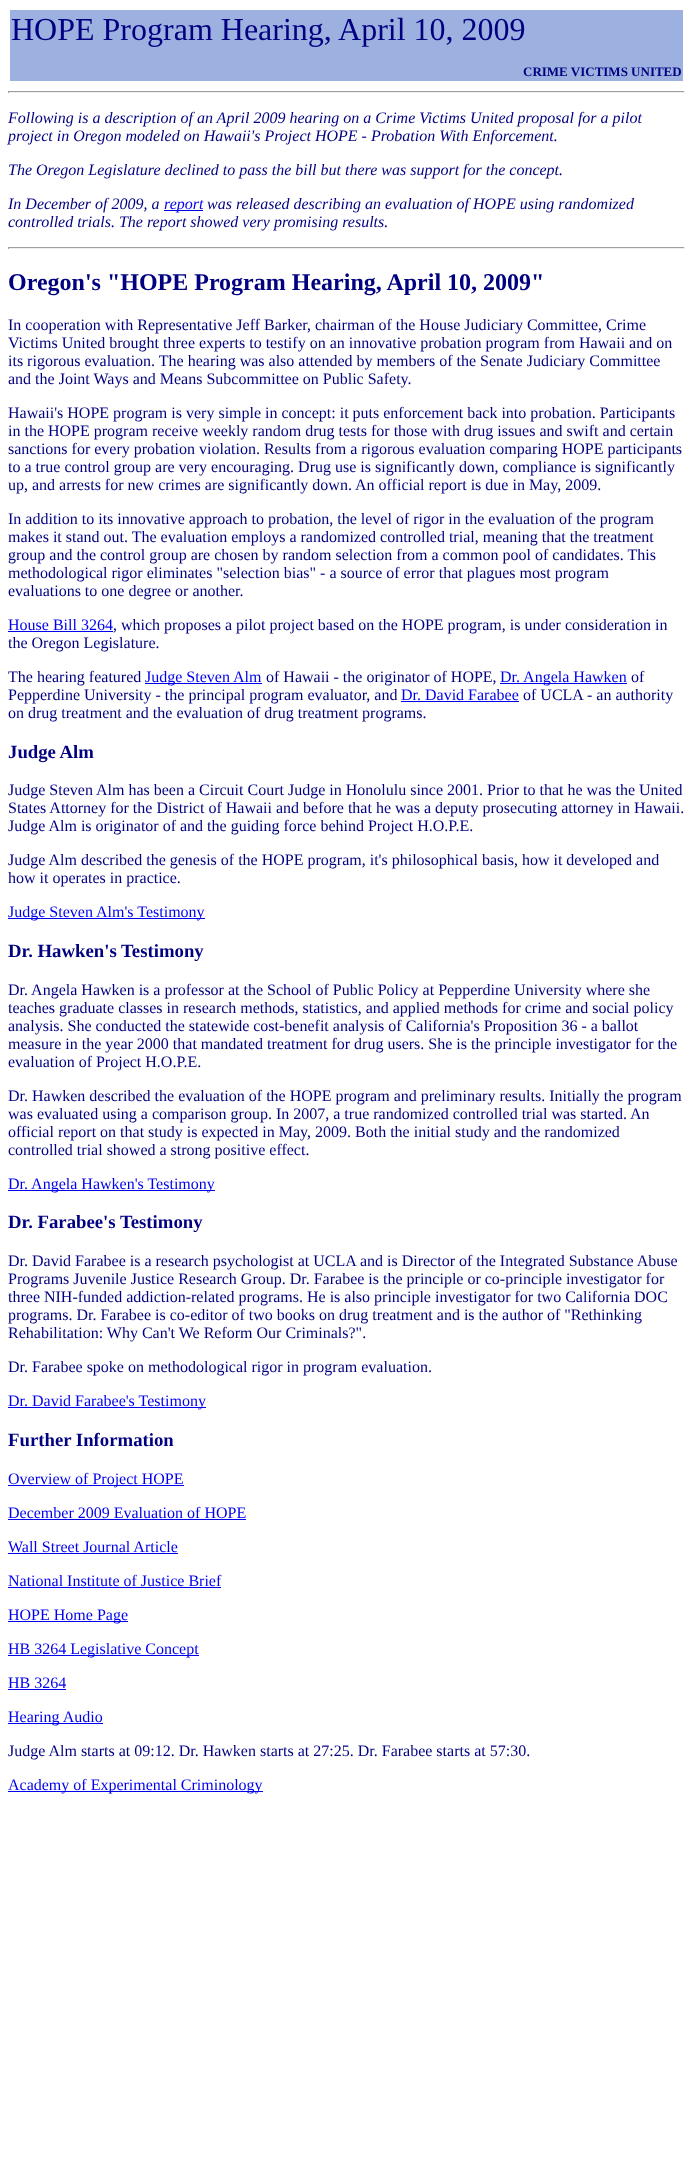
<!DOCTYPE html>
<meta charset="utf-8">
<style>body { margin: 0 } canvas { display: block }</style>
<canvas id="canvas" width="693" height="2168"></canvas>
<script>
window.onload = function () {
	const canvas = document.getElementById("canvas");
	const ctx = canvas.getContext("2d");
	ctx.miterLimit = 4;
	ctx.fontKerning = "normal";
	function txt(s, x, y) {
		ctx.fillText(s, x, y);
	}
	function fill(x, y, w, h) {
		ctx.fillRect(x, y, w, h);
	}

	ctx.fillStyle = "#FFFFFF";
	fill(0, 0, 693, 2168);
	ctx.fillStyle = "#9DB1E1";
	fill(10, 10, 673, 71);
	ctx.fillStyle = "#9F9F9F";
	fill(8, 91, 677, 1);
	ctx.fillStyle = "#EEEEEE";
	fill(684, 91, 1, 2);
	fill(8, 92, 677, 1);
	ctx.fillStyle = "#9F9F9F";
	fill(8, 91, 1, 2);
	ctx.fillStyle = "#0000EE";
	fill(164, 210, 39, 1);
	ctx.fillStyle = "#9F9F9F";
	fill(8, 247, 677, 1);
	ctx.fillStyle = "#EEEEEE";
	fill(684, 247, 1, 2);
	fill(8, 248, 677, 1);
	ctx.fillStyle = "#9F9F9F";
	fill(8, 247, 1, 2);
	ctx.fillStyle = "#0000EE";
	fill(8, 631, 105, 1);
	fill(145, 683, 117, 1);
	fill(500, 683, 127, 1);
	fill(401, 701, 118, 1);
	fill(8, 918, 197, 1);
	fill(8, 1190, 207, 1);
	fill(8, 1407, 198, 1);
	fill(8, 1485, 176, 1);
	fill(8, 1519, 238, 1);
	fill(8, 1553, 170, 1);
	fill(8, 1587, 213, 1);
	fill(8, 1621, 120, 1);
	fill(8, 1655, 191, 1);
	fill(8, 1689, 58, 1);
	fill(8, 1723, 95, 1);
	fill(8, 1791, 255, 1);
	ctx.font = "32px Liberation Serif";
	ctx.fillStyle = "#000080";
	txt("HOPE Program Hearing, April 10, 2009", 11, 40);
	ctx.font = "bold 13px Liberation Serif";
	txt("CRIME VICTIMS UNITED", 523, 76);
	ctx.font = "italic 16px Liberation Serif";
	txt("Following is a description of an April 2009 hearing on a Crime Victims United proposal for a pilot", 8, 123);
	txt("project in Oregon modeled on Hawaii's Project HOPE - Probation With Enforcement.", 8, 141);
	txt("The Oregon Legislature declined to pass the bill but there was support for the concept.", 8, 175);
	txt("In December of 2009, a", 8, 209);
	ctx.fillStyle = "#0000EE";
	txt("report", 164, 209);
	ctx.fillStyle = "#000080";
	txt("was released describing an evaluation of HOPE using randomized", 207, 209);
	txt("controlled trials. The report showed very promising results.", 8, 227);
	ctx.font = "bold 24px Liberation Serif";
	txt("Oregon's \"HOPE Program Hearing, April 10, 2009\"", 8, 290);
	ctx.font = "16px Liberation Serif";
	txt("In cooperation with Representative Jeff Barker, chairman of the House Judiciary Committee, Crime", 8, 330);
	txt("Victims United brought three experts to testify on an innovative probation program from Hawaii and on", 8, 348);
	txt("its rigorous evaluation. The hearing was also attended by members of the Senate Judiciary Committee", 8, 366);
	txt("and the Joint Ways and Means Subcommittee on Public Safety.", 8, 384);
	txt("Hawaii's HOPE program is very simple in concept: it puts enforcement back into probation. Participants", 8, 418);
	txt("in the HOPE program receive weekly random drug tests for those with drug issues and swift and certain", 8, 436);
	txt("sanctions for every probation violation. Results from a rigorous evaluation comparing HOPE participants", 8, 454);
	txt("to a true control group are very encouraging. Drug use is significantly down, compliance is significantly", 8, 472);
	txt("up, and arrests for new crimes are significantly down. An official report is due in May, 2009.", 8, 490);
	txt("In addition to its innovative approach to probation, the level of rigor in the evaluation of the program", 8, 524);
	txt("makes it stand out. The evaluation employs a randomized controlled trial, meaning that the treatment", 8, 542);
	txt("group and the control group are chosen by random selection from a common pool of candidates. This", 8, 560);
	txt("methodological rigor eliminates \"selection bias\" - a source of error that plagues most program", 8, 578);
	txt("evaluations to one degree or another.", 8, 596);
	ctx.fillStyle = "#0000EE";
	txt("House Bill 3264", 8, 630);
	ctx.fillStyle = "#000080";
	txt(", which proposes a pilot project based on the HOPE program, is under consideration in", 113, 630);
	txt("the Oregon Legislature.", 8, 648);
	txt("The hearing featured", 8, 682);
	ctx.fillStyle = "#0000EE";
	txt("Judge Steven Alm", 145, 682);
	ctx.fillStyle = "#000080";
	txt("of Hawaii - the originator of HOPE,", 266, 682);
	ctx.fillStyle = "#0000EE";
	txt("Dr. Angela Hawken", 500, 682);
	ctx.fillStyle = "#000080";
	txt("of", 631, 682);
	txt("Pepperdine University - the principal program evaluator, and", 8, 700);
	ctx.fillStyle = "#0000EE";
	txt("Dr. David Farabee", 401, 700);
	ctx.fillStyle = "#000080";
	txt("of UCLA - an authority", 523, 700);
	txt("on drug treatment and the evaluation of drug treatment programs.", 8, 718);
	ctx.font = "bold 18.75px Liberation Serif";
	txt("Judge Alm", 8, 758);
	ctx.font = "16px Liberation Serif";
	txt("Judge Steven Alm has been a Circuit Court Judge in Honolulu since 2001. Prior to that he was the United", 8, 795);
	txt("States Attorney for the District of Hawaii and before that he was a deputy prosecuting attorney in Hawaii.", 8, 813);
	txt("Judge Alm is originator of and the guiding force behind Project H.O.P.E.", 8, 831);
	txt("Judge Alm described the genesis of the HOPE program, it's philosophical basis, how it developed and", 8, 865);
	txt("how it operates in practice.", 8, 883);
	ctx.fillStyle = "#0000EE";
	txt("Judge Steven Alm's Testimony", 8, 917);
	ctx.font = "bold 18.75px Liberation Serif";
	ctx.fillStyle = "#000080";
	txt("Dr. Hawken's Testimony", 8, 957);
	ctx.font = "16px Liberation Serif";
	txt("Dr. Angela Hawken is a professor at the School of Public Policy at Pepperdine University where she", 8, 995);
	txt("teaches graduate classes in research methods, statistics, and applied methods for crime and social policy", 8, 1013);
	txt("analysis. She conducted the statewide cost-benefit analysis of California's Proposition 36 - a ballot", 8, 1031);
	txt("measure in the year 2000 that mandated treatment for drug users. She is the principle investigator for the", 8, 1049);
	txt("evaluation of Project H.O.P.E.", 8, 1067);
	txt("Dr. Hawken described the evaluation of the HOPE program and preliminary results. Initially the program", 8, 1101);
	txt("was evaluated using a comparison group. In 2007, a true randomized controlled trial was started. An", 8, 1119);
	txt("official report on that study is expected in May, 2009. Both the initial study and the randomized", 8, 1137);
	txt("controlled trial showed a strong positive effect.", 8, 1155);
	ctx.fillStyle = "#0000EE";
	txt("Dr. Angela Hawken's Testimony", 8, 1189);
	ctx.font = "bold 18.75px Liberation Serif";
	ctx.fillStyle = "#000080";
	txt("Dr. Farabee's Testimony", 8, 1228);
	ctx.font = "16px Liberation Serif";
	txt("Dr. David Farabee is a research psychologist at UCLA and is Director of the Integrated Substance Abuse", 8, 1266);
	txt("Programs Juvenile Justice Research Group. Dr. Farabee is the principle or co-principle investigator for", 8, 1284);
	txt("three NIH-funded addiction-related programs. He is also principle investigator for two California DOC", 8, 1302);
	txt("programs. Dr. Farabee is co-editor of two books on drug treatment and is the author of \"Rethinking", 8, 1320);
	txt("Rehabilitation: Why Can't We Reform Our Criminals?\".", 8, 1338);
	txt("Dr. Farabee spoke on methodological rigor in program evaluation.", 8, 1372);
	ctx.fillStyle = "#0000EE";
	txt("Dr. David Farabee's Testimony", 8, 1406);
	ctx.font = "bold 18.75px Liberation Serif";
	ctx.fillStyle = "#000080";
	txt("Further Information", 8, 1446);
	ctx.font = "16px Liberation Serif";
	ctx.fillStyle = "#0000EE";
	txt("Overview of Project HOPE", 8, 1484);
	txt("December 2009 Evaluation of HOPE", 8, 1518);
	txt("Wall Street Journal Article", 8, 1552);
	txt("National Institute of Justice Brief", 8, 1586);
	txt("HOPE Home Page", 8, 1620);
	txt("HB 3264 Legislative Concept", 8, 1654);
	txt("HB 3264", 8, 1688);
	txt("Hearing Audio", 8, 1722);
	ctx.fillStyle = "#000080";
	txt("Judge Alm starts at 09:12. Dr. Hawken starts at 27:25. Dr. Farabee starts at 57:30.", 8, 1756);
	ctx.fillStyle = "#0000EE";
	txt("Academy of Experimental Criminology", 8, 1790);
};
</script>
